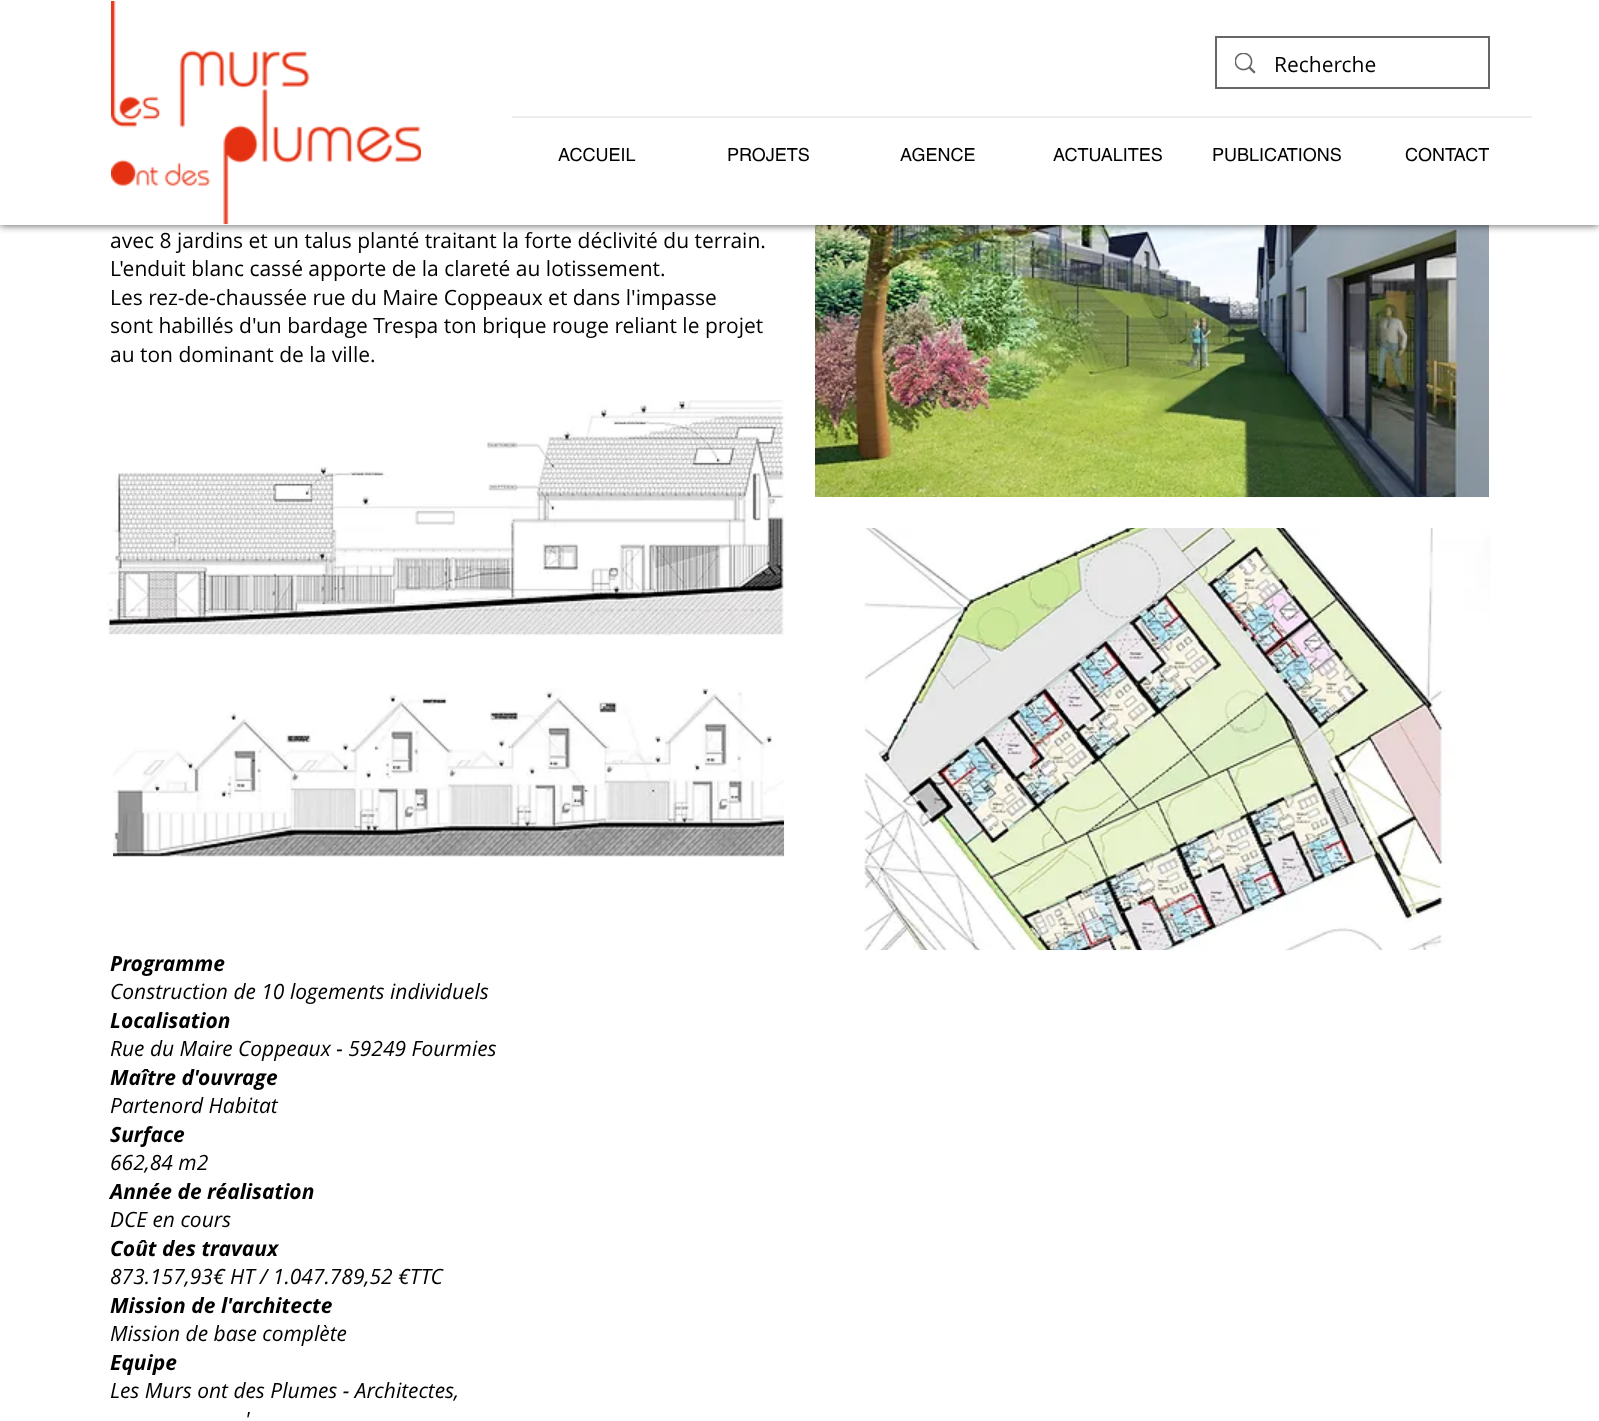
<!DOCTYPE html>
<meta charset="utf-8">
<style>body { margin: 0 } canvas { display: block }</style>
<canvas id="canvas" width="1599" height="1421"></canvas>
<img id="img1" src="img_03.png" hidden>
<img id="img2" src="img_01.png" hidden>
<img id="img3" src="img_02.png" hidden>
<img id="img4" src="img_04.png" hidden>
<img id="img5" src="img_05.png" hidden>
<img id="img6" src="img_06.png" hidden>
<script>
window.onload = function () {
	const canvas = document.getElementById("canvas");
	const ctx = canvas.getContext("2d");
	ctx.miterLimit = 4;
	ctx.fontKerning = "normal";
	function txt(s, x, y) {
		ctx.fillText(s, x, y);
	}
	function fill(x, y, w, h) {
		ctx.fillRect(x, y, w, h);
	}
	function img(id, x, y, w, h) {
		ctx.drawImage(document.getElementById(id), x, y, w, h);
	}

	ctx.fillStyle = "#FFFFFF";
	fill(0, 0, 1599, 1421);
	img("img1", 815, 225, 674, 273);
	ctx.fillStyle = "rgba(0, 0, 0, 0.7)";
	ctx.filter = "blur(4px)";
	ctx.beginPath();
	ctx.rect(0, 0, 1599, 225);
	ctx.fill();
	ctx.filter = "none";
	ctx.fillStyle = "#FFFFFF";
	fill(0, 0, 1599, 225);
	img("img2", 111, 1, 311, 224);
	ctx.strokeStyle = "#666666";
	ctx.lineWidth = 2;
	ctx.strokeRect(1216, 37, 273, 51);
	img("img3", 1235, 53, 21, 21);
	ctx.fillStyle = "#EDEDED";
	fill(512, 116, 1020, 2);
	img("img4", 107, 400, 678, 236);
	img("img5", 864, 528, 627, 423);
	img("img6", 113, 688, 672, 169);
	ctx.font = "21px Open Sans";
	ctx.fillStyle = "#000000";
	txt("Recherche", 1274, 72);
	ctx.font = "18px helvetica";
	txt("ACCUEIL", 558, 161);
	txt("PROJETS", 727, 161);
	txt("AGENCE", 900, 161);
	txt("ACTUALITES", 1053, 161);
	txt("PUBLICATIONS", 1212, 161);
	txt("CONTACT", 1405, 161);
	ctx.font = "21px Open Sans";
	txt("avec 8 jardins et un talus planté traitant la forte déclivité du terrain.", 110, 248);
	txt("L'enduit blanc cassé apporte de la clareté au lotissement.", 110, 276);
	txt("Les rez-de-chaussée rue du Maire Coppeaux et dans l'impasse", 110, 305);
	txt("sont habillés d'un bardage Trespa ton brique rouge reliant le projet", 110, 333);
	txt("au ton dominant de la ville.", 110, 362);
	ctx.font = "italic bold 21px Open Sans";
	txt("Programme", 110, 971);
	ctx.font = "italic 21px Open Sans";
	txt("Construction de 10 logements individuels", 110, 999);
	ctx.font = "italic bold 21px Open Sans";
	txt("Localisation", 110, 1028);
	ctx.font = "italic 21px Open Sans";
	txt("Rue du Maire Coppeaux - 59249 Fourmies", 110, 1056);
	ctx.font = "italic bold 21px Open Sans";
	txt("Maître d'ouvrage", 110, 1085);
	ctx.font = "italic 21px Open Sans";
	txt("Partenord Habitat", 110, 1113);
	ctx.font = "italic bold 21px Open Sans";
	txt("Surface", 110, 1142);
	ctx.font = "italic 21px Open Sans";
	txt("662,84 m2", 110, 1170);
	ctx.font = "italic bold 21px Open Sans";
	txt("Année de réalisation", 110, 1199);
	ctx.font = "italic 21px Open Sans";
	txt("DCE en cours", 110, 1227);
	ctx.font = "italic bold 21px Open Sans";
	txt("Coût des travaux", 110, 1256);
	ctx.font = "italic 21px Open Sans";
	txt("873.157,93€ HT / 1.047.789,52 €TTC", 110, 1284);
	ctx.font = "italic bold 21px Open Sans";
	txt("Mission de l'architecte", 110, 1313);
	ctx.font = "italic 21px Open Sans";
	txt("Mission de base complète", 110, 1341);
	ctx.font = "italic bold 21px Open Sans";
	txt("Equipe", 110, 1370);
	ctx.font = "italic 21px Open Sans";
	txt("Les Murs ont des Plumes - Architectes,", 110, 1398);
	txt("'", 245, 1427);
};
</script>
